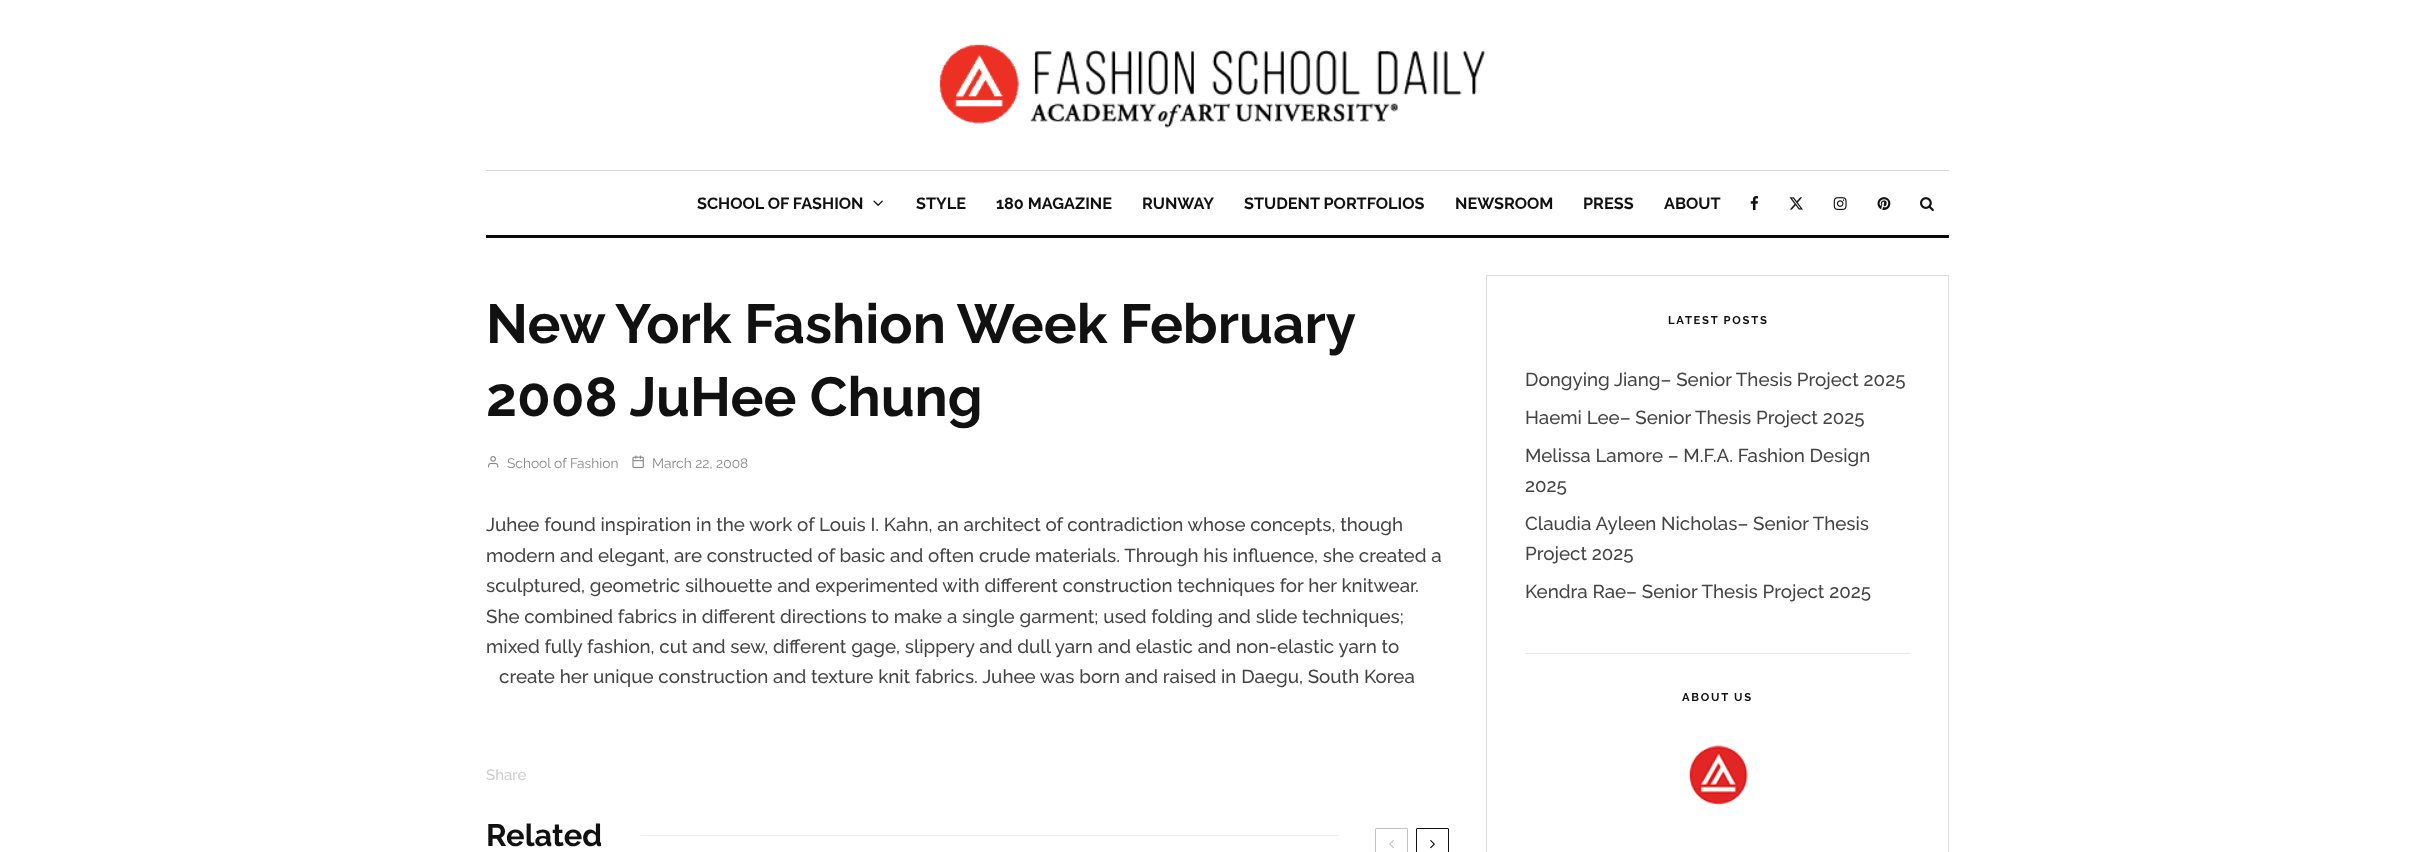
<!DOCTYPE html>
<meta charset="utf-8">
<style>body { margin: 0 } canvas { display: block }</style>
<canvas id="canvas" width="2435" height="852"></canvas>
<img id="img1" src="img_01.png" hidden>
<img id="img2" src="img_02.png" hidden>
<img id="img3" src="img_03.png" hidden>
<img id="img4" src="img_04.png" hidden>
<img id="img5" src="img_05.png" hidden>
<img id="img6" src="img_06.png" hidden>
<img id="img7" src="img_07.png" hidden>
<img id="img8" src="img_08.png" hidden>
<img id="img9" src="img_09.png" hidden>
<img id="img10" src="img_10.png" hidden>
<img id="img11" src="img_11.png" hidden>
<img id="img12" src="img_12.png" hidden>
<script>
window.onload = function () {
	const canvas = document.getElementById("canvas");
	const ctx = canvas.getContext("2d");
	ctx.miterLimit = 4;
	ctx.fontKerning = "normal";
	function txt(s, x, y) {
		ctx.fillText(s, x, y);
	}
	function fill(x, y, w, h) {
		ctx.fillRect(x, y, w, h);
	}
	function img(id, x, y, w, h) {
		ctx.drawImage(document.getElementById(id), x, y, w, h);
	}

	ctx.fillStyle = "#FFFFFF";
	fill(0, 0, 2435, 852);
	img("img1", 939, 44, 547, 84);
	ctx.fillStyle = "#D8D8D8";
	fill(486, 170, 1463, 1);
	ctx.fillStyle = "#0A0A0A";
	fill(486, 235, 1463, 3);
	img("img2", 873, 200, 10, 6);
	img("img3", 1750, 196, 9, 14);
	img("img4", 1789, 197, 14, 13);
	img("img5", 1833, 197, 14, 13);
	img("img6", 1877, 197, 14, 13);
	img("img7", 1920, 197, 14, 15);
	img("img8", 488, 456, 11, 12);
	img("img9", 632, 455, 12, 14);
	ctx.fillStyle = "#EEEEEE";
	fill(641, 835, 697, 1);
	ctx.beginPath();
	ctx.roundRect(1375.5, 828.5, 32, 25, 0.5);
	ctx.strokeStyle = "#C4C4C4";
	ctx.stroke();
	img("img10", 1389, 840, 5, 9);
	ctx.beginPath();
	ctx.roundRect(1416.5, 828.5, 32, 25, 0.5);
	ctx.strokeStyle = "#111111";
	ctx.stroke();
	img("img11", 1430, 840, 5, 9);
	ctx.strokeStyle = "#DDDDDD";
	ctx.strokeRect(1486.5, 275.5, 462, 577);
	ctx.fillStyle = "#E9E9E9";
	fill(1525, 653, 385, 1);
	img("img12", 1688, 744, 61, 62);
	ctx.font = "bold 16.25px Raleway";
	ctx.fillStyle = "#111111";
	txt("SCHOOL OF FASHION", 697, 209);
	txt("STYLE", 916, 209);
	txt("180 MAGAZINE", 996, 209);
	txt("RUNWAY", 1142, 209);
	txt("STUDENT PORTFOLIOS", 1244, 209);
	txt("NEWSROOM", 1455, 209);
	txt("PRESS", 1583, 209);
	txt("ABOUT", 1664, 209);
	ctx.wordSpacing = "-0.5px";
	ctx.font = "bold 55px Raleway";
	txt("New York Fashion Week February", 486, 343);
	ctx.wordSpacing = "0px";
	txt("2008 JuHee Chung", 486, 416);
	ctx.font = "13.75px Raleway";
	ctx.fillStyle = "#888888";
	txt("School of Fashion", 507, 468);
	txt("March 22, 2008", 652, 468);
	ctx.font = "500 18.75px Raleway";
	ctx.fillStyle = "#444444";
	txt("Juhee found inspiration in the work of Louis I. Kahn, an architect of contradiction whose concepts, though", 486, 531);
	txt("modern and elegant, are constructed of basic and often crude materials. Through his influence, she created a", 486, 562);
	txt("sculptured, geometric silhouette and experimented with different construction techniques for her knitwear.", 486, 592);
	txt("She combined fabrics in different directions to make a single garment; used folding and slide techniques;", 486, 623);
	txt("mixed fully fashion, cut and sew, different gage, slippery and dull yarn and elastic and non-elastic yarn to", 486, 653);
	txt("create her unique construction and texture knit fabrics. Juhee was born and raised in Daegu, South Korea", 499, 683);
	ctx.font = "500 15px Raleway";
	ctx.fillStyle = "#CCCCCC";
	txt("Share", 486, 780);
	ctx.font = "bold 31px Raleway";
	ctx.fillStyle = "#111111";
	txt("Related", 486, 846);
	ctx.letterSpacing = "1.75px";
	ctx.font = "bold 11.25px Raleway";
	txt("LATEST POSTS", 1668, 324);
	ctx.letterSpacing = "0px";
	ctx.font = "500 18.75px Raleway";
	ctx.fillStyle = "#444444";
	txt("Dongying Jiang– Senior Thesis Project 2025", 1525, 386);
	txt("Haemi Lee– Senior Thesis Project 2025", 1525, 424);
	txt("Melissa Lamore – M.F.A. Fashion Design", 1525, 462);
	txt("2025", 1525, 492);
	txt("Claudia Ayleen Nicholas– Senior Thesis", 1525, 530);
	txt("Project 2025", 1525, 560);
	txt("Kendra Rae– Senior Thesis Project 2025", 1525, 598);
	ctx.letterSpacing = "1.75px";
	ctx.font = "bold 11.25px Raleway";
	ctx.fillStyle = "#111111";
	txt("ABOUT US", 1682, 701);
};
</script>
